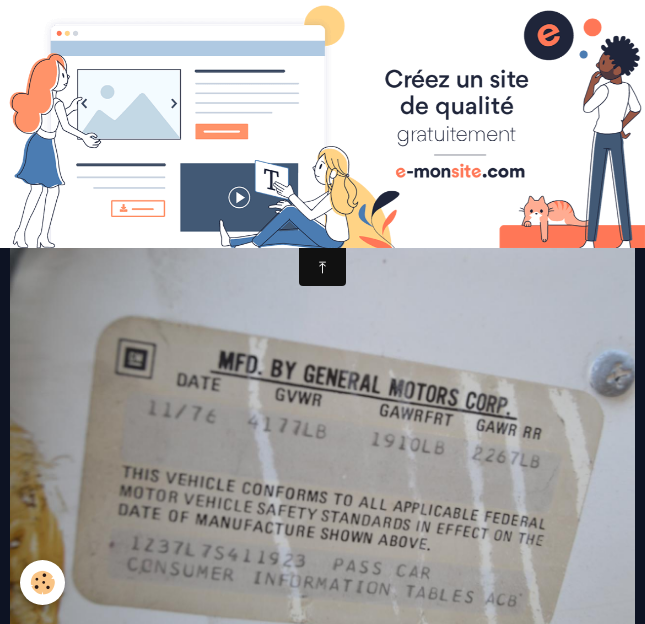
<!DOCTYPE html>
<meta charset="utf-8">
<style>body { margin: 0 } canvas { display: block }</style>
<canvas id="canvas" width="645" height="624"></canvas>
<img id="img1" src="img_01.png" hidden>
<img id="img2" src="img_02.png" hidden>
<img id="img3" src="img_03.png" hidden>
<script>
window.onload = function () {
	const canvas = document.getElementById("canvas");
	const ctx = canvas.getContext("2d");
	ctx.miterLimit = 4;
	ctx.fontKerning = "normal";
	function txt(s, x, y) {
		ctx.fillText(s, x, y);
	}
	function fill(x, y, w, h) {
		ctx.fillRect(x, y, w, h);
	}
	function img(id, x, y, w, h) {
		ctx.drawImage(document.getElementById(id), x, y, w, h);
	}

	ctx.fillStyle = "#0D1323";
	fill(0, 0, 645, 624);
	img("img1", 10, 248, 625, 376);
	ctx.fillStyle = "#FFFFFF";
	fill(0, 0, 645, 248);
	img("img2", 9, 5, 636, 243);
	ctx.fillStyle = "#111111";
	ctx.beginPath();
	ctx.roundRect(299, 248, 47, 38, [0, 0, 4, 4]);
	ctx.fill();
	ctx.fillStyle = "rgba(0, 0, 0, 0.24)";
	ctx.filter = "blur(5px)";
	ctx.beginPath();
	ctx.roundRect(20, 563, 45, 45, 22.5);
	ctx.fill();
	ctx.filter = "none";
	ctx.fillStyle = "#FFFFFF";
	ctx.beginPath();
	ctx.arc(42.5, 582.5, 22.5, 0, Math.PI * 2);
	ctx.fill();
	img("img3", 30, 570, 25, 25);
	ctx.font = "16px FreeSerif";
	txt("⤒", 319, 273);
};
</script>
